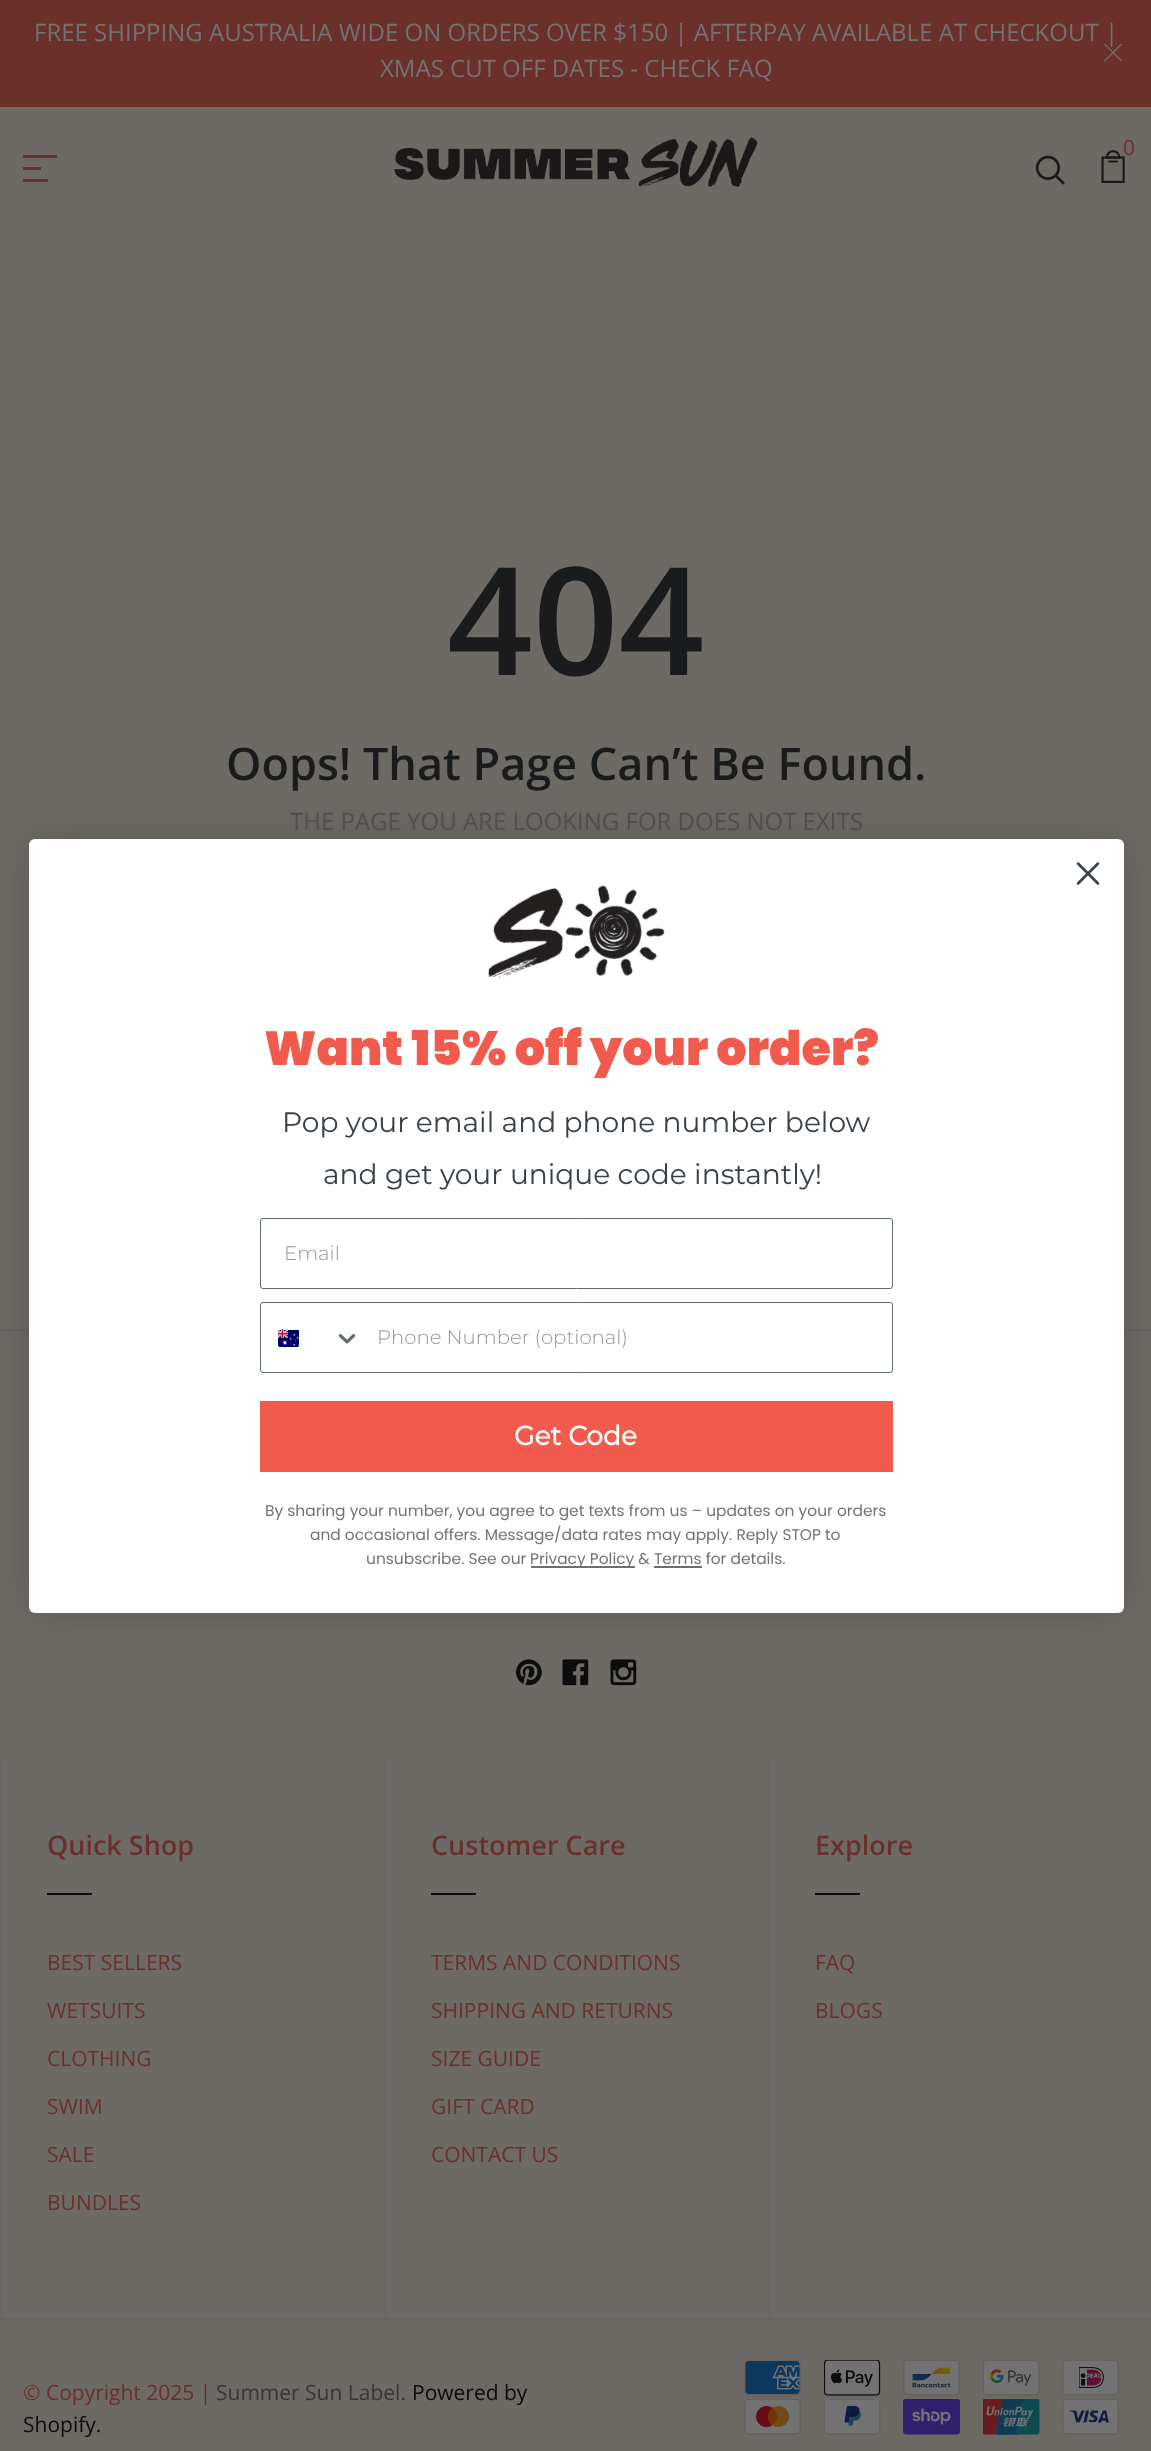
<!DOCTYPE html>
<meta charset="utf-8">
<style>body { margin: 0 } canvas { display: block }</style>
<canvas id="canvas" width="1151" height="2451"></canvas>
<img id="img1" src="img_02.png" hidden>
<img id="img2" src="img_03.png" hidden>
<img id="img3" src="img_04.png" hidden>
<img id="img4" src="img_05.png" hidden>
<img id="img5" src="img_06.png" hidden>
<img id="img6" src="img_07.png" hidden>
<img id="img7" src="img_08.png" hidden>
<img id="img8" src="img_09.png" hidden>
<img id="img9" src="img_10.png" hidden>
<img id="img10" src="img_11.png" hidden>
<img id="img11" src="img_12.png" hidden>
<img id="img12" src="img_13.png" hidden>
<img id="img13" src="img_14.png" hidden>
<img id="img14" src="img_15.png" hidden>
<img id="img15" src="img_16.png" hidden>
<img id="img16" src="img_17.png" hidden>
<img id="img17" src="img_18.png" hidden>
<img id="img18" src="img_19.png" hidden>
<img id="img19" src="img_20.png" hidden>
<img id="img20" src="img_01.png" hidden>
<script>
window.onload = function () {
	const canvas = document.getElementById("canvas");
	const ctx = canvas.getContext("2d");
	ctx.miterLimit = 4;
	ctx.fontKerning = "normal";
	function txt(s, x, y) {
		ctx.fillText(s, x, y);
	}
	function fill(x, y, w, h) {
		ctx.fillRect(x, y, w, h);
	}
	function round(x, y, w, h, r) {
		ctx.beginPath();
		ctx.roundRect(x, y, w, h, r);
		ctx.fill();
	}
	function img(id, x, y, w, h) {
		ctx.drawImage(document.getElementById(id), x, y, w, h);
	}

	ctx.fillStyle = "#6D6A65";
	fill(0, 0, 1151, 2451);
	ctx.fillStyle = "#6C302B";
	fill(0, 0, 1151, 107);
	img("img1", 394, 137, 364, 50);
	img("img2", 1101, 150, 24, 33);
	img("img3", 1035, 155, 30, 30);
	fill(23, 155, 34, 3);
	fill(23, 167, 18, 3);
	fill(23, 179, 25, 3);
	ctx.fillStyle = "#646464";
	fill(0, 1329, 1151, 2);
	img("img4", 516, 1659, 26, 27);
	img("img5", 562, 1659, 27, 27);
	img("img6", 610, 1659, 27, 27);
	ctx.fillStyle = "#696765";
	fill(0, 1755, 2, 563);
	ctx.fillStyle = "#0C0C0C";
	fill(47, 1893, 45, 2);
	ctx.fillStyle = "#696765";
	fill(384, 1755, 2, 563);
	ctx.fillStyle = "#0C0C0C";
	fill(431, 1893, 45, 2);
	ctx.fillStyle = "#696765";
	fill(768, 1755, 2, 563);
	ctx.fillStyle = "#0C0C0C";
	fill(815, 1893, 45, 2);
	ctx.fillStyle = "#646464";
	fill(0, 2318, 1151, 2);
	img("img7", 744, 2360, 57, 36);
	img("img8", 824, 2360, 57, 36);
	img("img9", 903, 2360, 57, 36);
	img("img10", 983, 2360, 57, 36);
	img("img11", 1062, 2360, 57, 36);
	img("img12", 744, 2399, 57, 36);
	img("img13", 824, 2399, 57, 36);
	img("img14", 903, 2399, 57, 36);
	img("img15", 983, 2399, 57, 36);
	img("img16", 1062, 2399, 57, 36);
	ctx.fillStyle = "rgba(0, 0, 0, 0.15)";
	ctx.filter = "blur(21px)";
	ctx.beginPath();
	ctx.roundRect(29, 839, 1095, 774, 6);
	ctx.fill();
	ctx.filter = "none";
	ctx.fillStyle = "#FFFFFF";
	round(29, 839, 1095, 774, 6);
	ctx.beginPath();
	ctx.moveTo(1078, 863.5);
	ctx.lineTo(1098, 883.5);
	ctx.moveTo(1078, 883.5);
	ctx.lineTo(1098, 863.5);
	ctx.closePath();
	ctx.strokeStyle = "#373F47";
	ctx.lineWidth = 2.5;
	ctx.lineCap = "round";
	ctx.lineJoin = "round";
	ctx.stroke();
	img("img17", 488, 885, 177, 94);
	ctx.beginPath();
	ctx.roundRect(260.5, 1218.5, 632, 70, 2.5);
	ctx.strokeStyle = "#606A72";
	ctx.lineWidth = 1;
	ctx.lineJoin = "miter";
	ctx.stroke();
	ctx.beginPath();
	ctx.roundRect(260.5, 1302.5, 632, 70, 2.5);
	ctx.stroke();
	img("img18", 278, 1329, 21, 18);
	img("img19", 338, 1334, 18, 10);
	ctx.fillStyle = "#F15B4D";
	fill(260, 1401, 633, 71);
	ctx.fillStyle = "#6F6F6F";
	fill(531, 1566, 104, 2);
	ctx.font = "24px Open Sans";
	ctx.fillStyle = "#727272";
	txt("FREE SHIPPING AUSTRALIA WIDE ON ORDERS OVER $150 | AFTERPAY AVAILABLE AT CHECKOUT |", 34, 41);
	txt("XMAS CUT OFF DATES - CHECK FAQ", 380, 77);
	img("img20", 1104, 44, 18, 18);
	ctx.font = "21px Open Sans";
	ctx.fillStyle = "#6C302B";
	txt("0", 1123, 155);
	ctx.font = "600 150px Open Sans";
	ctx.fillStyle = "#191B1C";
	txt("404", 447, 675);
	ctx.font = "600 45px Open Sans";
	txt("Oops! That Page Can’t Be Found.", 226, 780);
	ctx.font = "24px Open Sans";
	ctx.fillStyle = "#4F4F4F";
	txt("THE PAGE YOU ARE LOOKING FOR DOES NOT EXITS", 290, 830);
	ctx.font = "600 27px Open Sans";
	ctx.fillStyle = "#6C302B";
	txt("Quick Shop", 47, 1855);
	ctx.font = "21px Open Sans";
	txt("BEST SELLERS", 47, 1970);
	txt("WETSUITS", 47, 2018);
	txt("CLOTHING", 47, 2066);
	txt("SWIM", 47, 2114);
	txt("SALE", 47, 2162);
	txt("BUNDLES", 47, 2210);
	ctx.font = "600 27px Open Sans";
	txt("Customer Care", 431, 1855);
	ctx.font = "21px Open Sans";
	txt("TERMS AND CONDITIONS", 431, 1970);
	txt("SHIPPING AND RETURNS", 431, 2018);
	txt("SIZE GUIDE", 431, 2066);
	txt("GIFT CARD", 431, 2114);
	txt("CONTACT US", 431, 2162);
	ctx.font = "600 27px Open Sans";
	txt("Explore", 815, 1855);
	ctx.font = "21px Open Sans";
	txt("FAQ", 815, 1970);
	txt("BLOGS", 815, 2018);
	txt("© Copyright 2025 |", 23, 2400);
	ctx.fillStyle = "#373737";
	txt("Summer Sun Label.", 216, 2400);
	ctx.fillStyle = "#0C0C0C";
	txt("Powered by", 412, 2400);
	txt("Shopify.", 23, 2432);
	ctx.font = "900 47.75px Poppins";
	ctx.fillStyle = "#F15B4D";
	txt("Want 15% off your order?", 264, 1065);
	ctx.font = "28.1px Montserrat";
	ctx.fillStyle = "#373F47";
	txt("Pop your email and phone number below", 282, 1132);
	txt("and get your unique code instantly!", 323, 1184);
	ctx.font = "300 19.7px Montserrat";
	ctx.fillStyle = "#949596";
	txt("Email", 284, 1260);
	txt("Phone Number (optional)", 377, 1344);
	ctx.font = "bold 26.5px Montserrat";
	ctx.fillStyle = "#FFFFFF";
	txt("Get Code", 514, 1445);
	ctx.font = "15.45px Poppins";
	ctx.fillStyle = "#727272";
	txt("By sharing your number, you agree to get texts from us – updates on your orders", 265, 1516);
	txt("and occasional offers. Message/data rates may apply. Reply STOP to", 310, 1540);
	txt("unsubscribe. See our", 366, 1564);
	txt("Privacy Policy & Terms for details.", 530, 1564);
	ctx.fillStyle = "#6F6F6F";
	fill(654, 1566, 48, 2);
};
</script>
